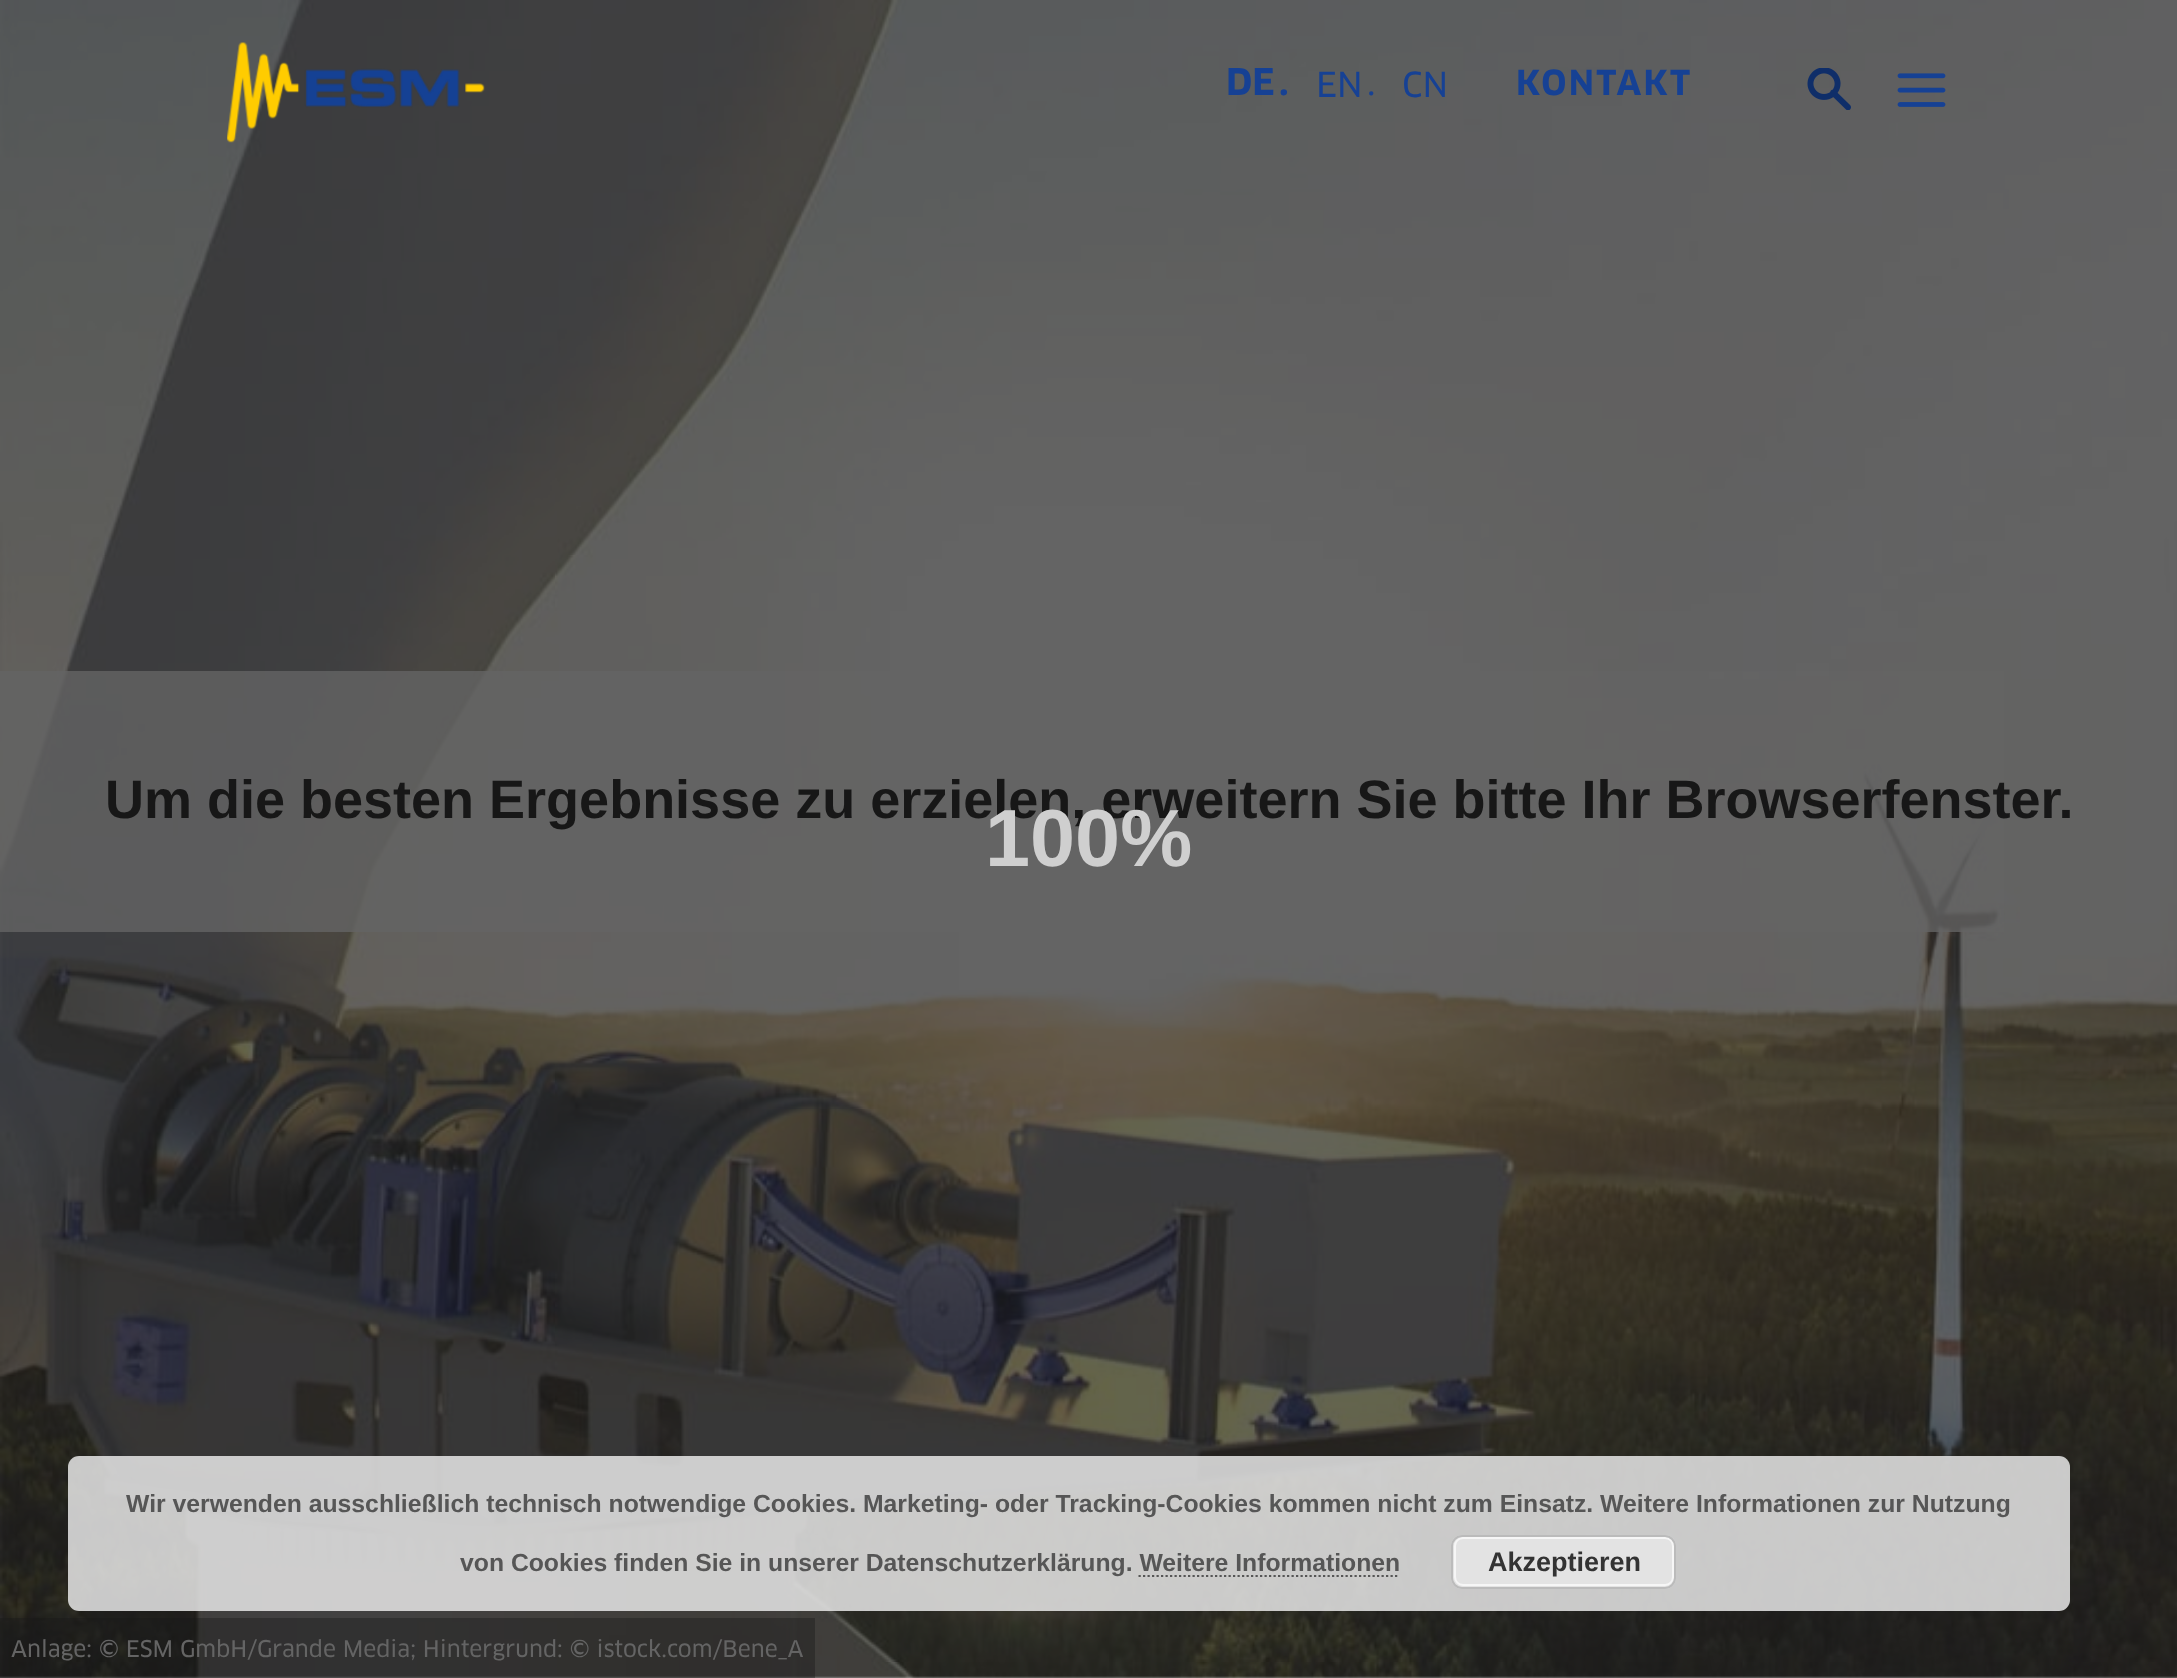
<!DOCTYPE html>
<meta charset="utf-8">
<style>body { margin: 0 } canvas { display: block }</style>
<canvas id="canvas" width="2177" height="1678"></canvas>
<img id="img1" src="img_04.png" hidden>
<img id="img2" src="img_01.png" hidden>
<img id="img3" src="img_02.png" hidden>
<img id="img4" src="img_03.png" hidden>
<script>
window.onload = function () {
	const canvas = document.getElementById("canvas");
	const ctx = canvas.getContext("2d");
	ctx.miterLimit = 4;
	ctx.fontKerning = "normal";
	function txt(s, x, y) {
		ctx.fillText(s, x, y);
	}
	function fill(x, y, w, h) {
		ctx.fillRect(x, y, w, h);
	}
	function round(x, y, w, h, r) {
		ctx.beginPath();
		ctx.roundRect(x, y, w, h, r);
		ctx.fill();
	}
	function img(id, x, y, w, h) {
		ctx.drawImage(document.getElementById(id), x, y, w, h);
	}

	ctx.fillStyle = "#FFFFFF";
	fill(0, 0, 2177, 1678);
	img("img1", 0, 0, 2177, 1678);
	img("img2", 227, 42, 258, 101);
	img("img3", 1807, 68, 44, 42);
	img("img4", 1897, 73, 49, 34);
	ctx.fillStyle = "rgba(100, 100, 100, 0.8)";
	fill(0, 671, 2004, 261);
	ctx.fillStyle = "rgba(23, 23, 23, 0.38)";
	fill(0, 1618, 815, 60);
	ctx.fillStyle = "rgba(232, 232, 232, 0.85)";
	round(68, 1456, 2002, 155, 11);
	ctx.fillStyle = "#E3E3E3";
	round(1451, 1535, 225, 54, 11);
	ctx.beginPath();
	ctx.roundRect(1455, 1538, 218, 47, 8);
	ctx.strokeStyle = "#F6F6F6";
	ctx.lineWidth = 2;
	ctx.stroke();
	ctx.beginPath();
	ctx.roundRect(1452, 1536, 223, 52, 10);
	ctx.strokeStyle = "#BBBBBB";
	ctx.stroke();
	ctx.beginPath();
	ctx.moveTo(1138.5, 1576);
	ctx.lineTo(1399.5, 1576);
	ctx.strokeStyle = "#565656";
	ctx.lineWidth = 2.2;
	ctx.setLineDash([2.25, 2.25]);
	ctx.stroke();
	ctx.font = "bold 36px 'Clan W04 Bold'";
	ctx.fillStyle = "#164194";
	txt("DE", 1226, 95);
	txt(".", 1279, 95);
	ctx.font = "500 33.75px 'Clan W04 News'";
	txt("EN", 1316, 97);
	txt(".", 1367, 95);
	txt("CN", 1402, 97);
	ctx.letterSpacing = "2.25px";
	ctx.font = "bold 33.75px 'Clan W04 Bold'";
	txt("KONTAKT", 1516, 95);
	ctx.letterSpacing = "0px";
	ctx.font = "bold 54px Liberation Sans";
	ctx.fillStyle = "#171717";
	txt("Um die besten Ergebnisse zu erzielen, erweitern Sie bitte Ihr Browserfenster.", 105, 818);
	ctx.font = "500 22.5px 'Clan W04 News'";
	ctx.fillStyle = "#646464";
	txt("Anlage: © ESM GmbH/Grande Media; Hintergrund: © istock.com/Bene_A", 11, 1657);
	ctx.font = "bold 81px Liberation Sans";
	ctx.fillStyle = "#CFCFCF";
	txt("100%", 985, 866);
	ctx.font = "bold 24.75px Liberation Sans";
	ctx.fillStyle = "#565656";
	txt("Wir verwenden ausschließlich technisch notwendige Cookies. Marketing- oder Tracking-Cookies kommen nicht zum Einsatz. Weitere Informationen zur Nutzung", 126, 1512);
	txt("von Cookies finden Sie in unserer Datenschutzerklärung. Weitere Informationen", 460, 1571);
	ctx.font = "bold 27px Liberation Sans";
	ctx.fillStyle = "#333333";
	txt("Akzeptieren", 1488, 1571);
};
</script>
